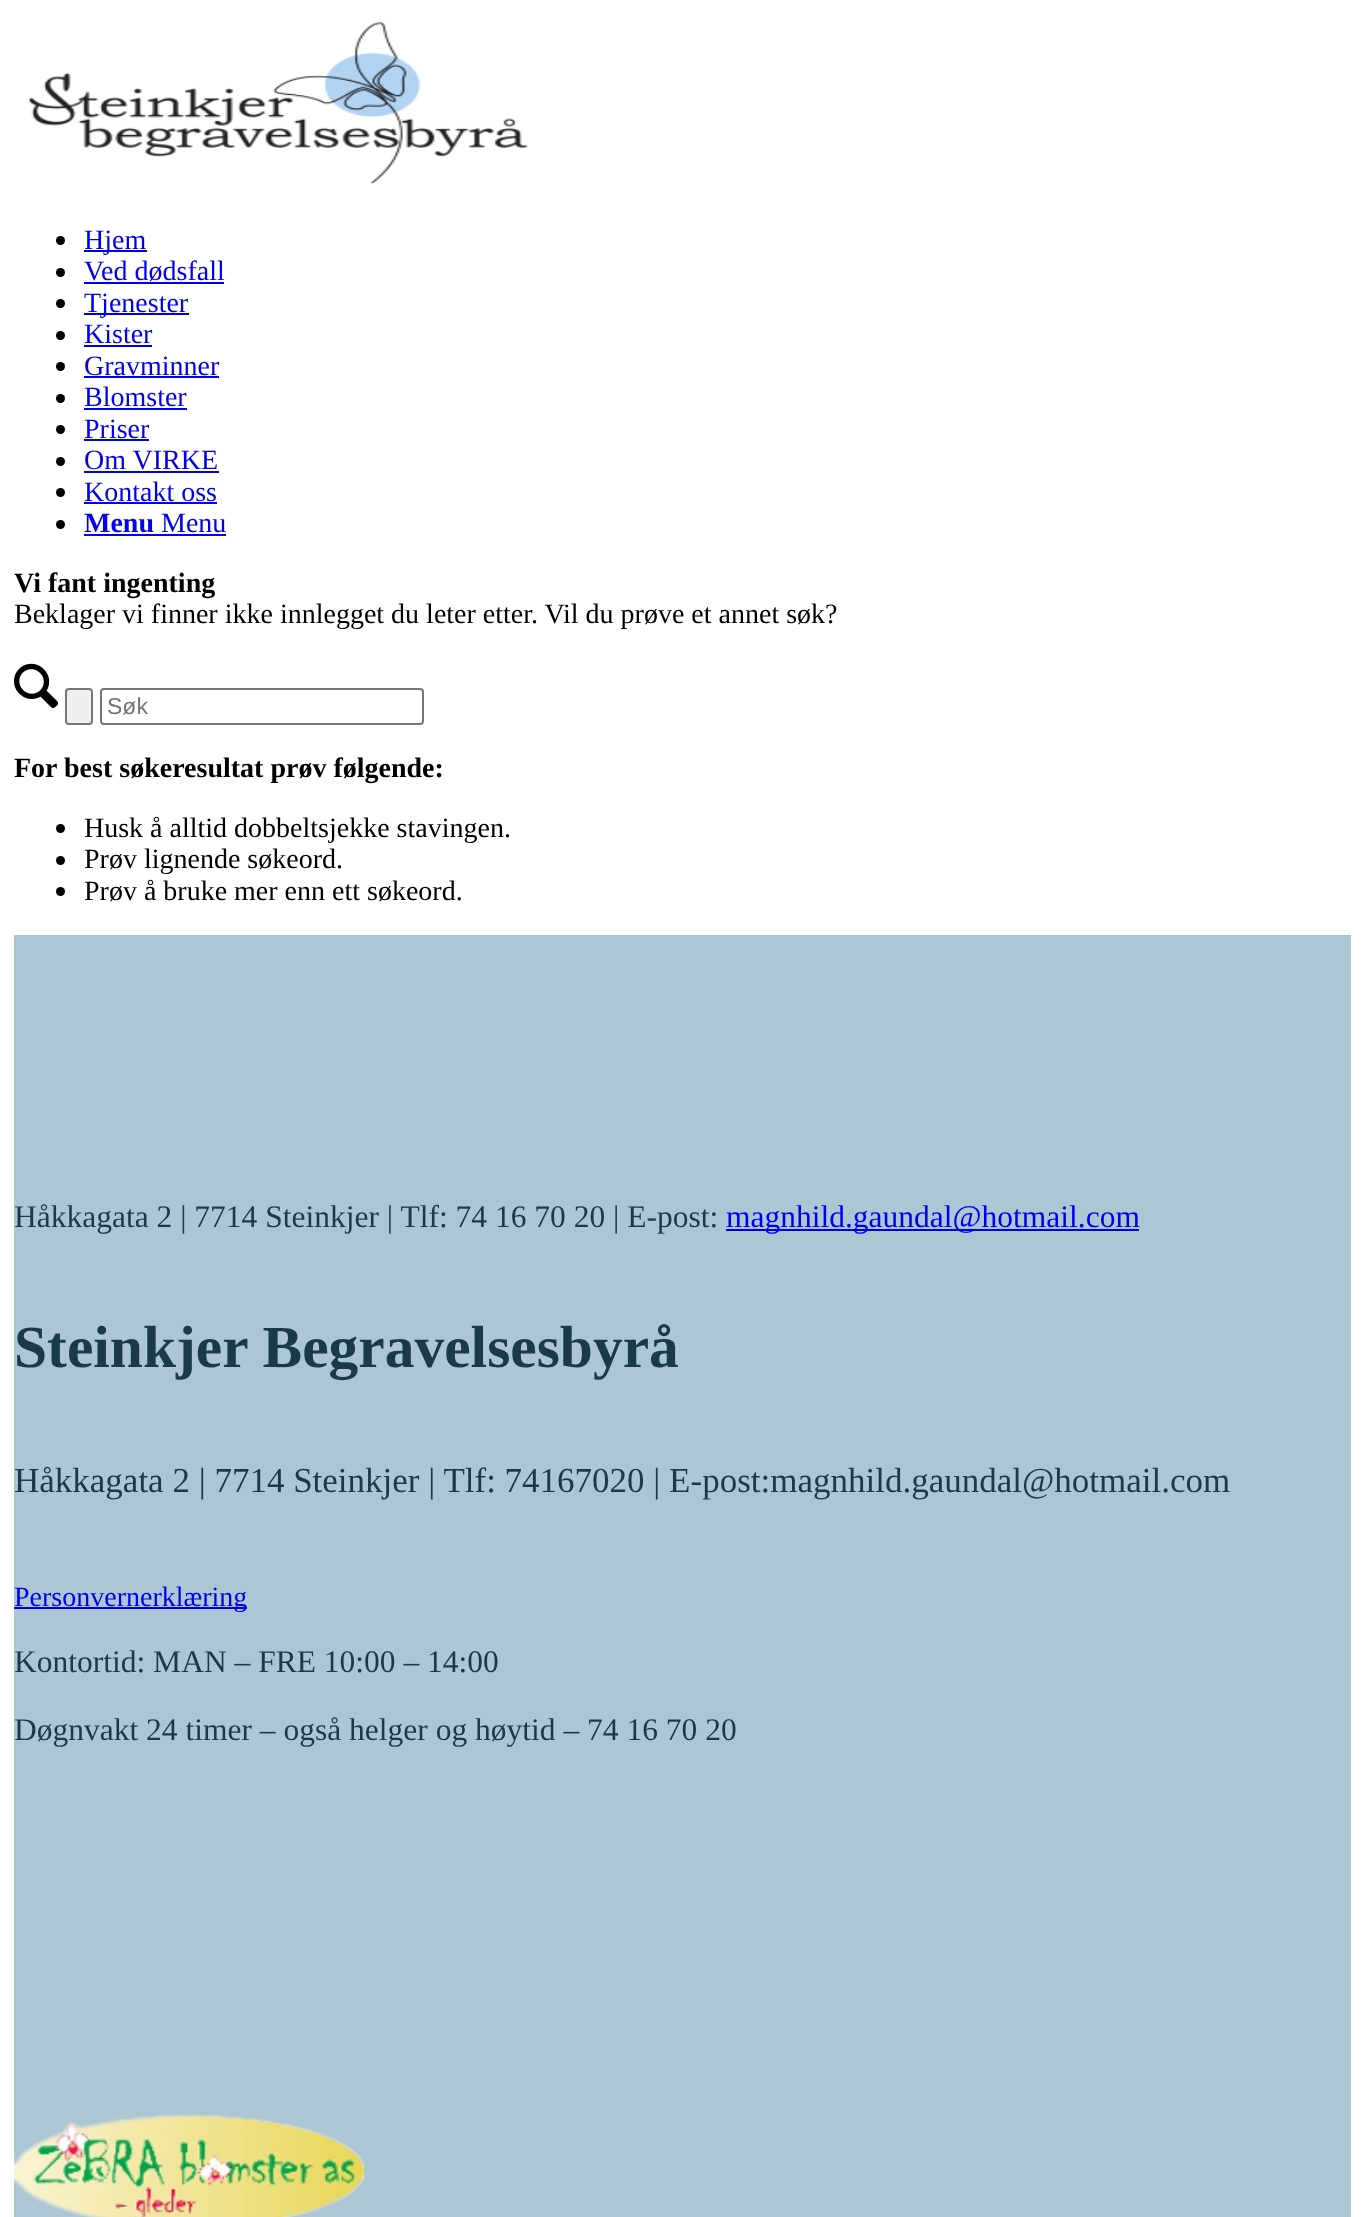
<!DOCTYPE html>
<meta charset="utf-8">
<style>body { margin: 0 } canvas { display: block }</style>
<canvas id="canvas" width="1365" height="2217"></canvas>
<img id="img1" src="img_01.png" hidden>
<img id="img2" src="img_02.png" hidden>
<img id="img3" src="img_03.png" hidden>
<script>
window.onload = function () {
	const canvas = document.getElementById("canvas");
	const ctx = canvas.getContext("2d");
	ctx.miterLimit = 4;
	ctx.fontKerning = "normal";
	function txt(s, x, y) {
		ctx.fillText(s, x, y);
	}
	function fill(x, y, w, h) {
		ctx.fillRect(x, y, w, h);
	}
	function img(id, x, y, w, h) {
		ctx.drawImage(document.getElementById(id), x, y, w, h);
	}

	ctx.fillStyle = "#FFFFFF";
	fill(0, 0, 1365, 2217);
	img("img1", 28, 22, 500, 162);
	ctx.fillStyle = "#000000";
	ctx.beginPath();
	ctx.arc(60.5, 240.5, 4.5, 0, Math.PI * 2);
	ctx.fill();
	ctx.fillStyle = "#0000EE";
	fill(84, 250, 63, 2);
	ctx.fillStyle = "#000000";
	ctx.beginPath();
	ctx.arc(60.5, 272.5, 4.5, 0, Math.PI * 2);
	ctx.fill();
	ctx.fillStyle = "#0000EE";
	fill(84, 282, 140, 2);
	ctx.fillStyle = "#000000";
	ctx.beginPath();
	ctx.arc(60.5, 303.5, 4.5, 0, Math.PI * 2);
	ctx.fill();
	ctx.fillStyle = "#0000EE";
	fill(84, 313, 105, 2);
	ctx.fillStyle = "#000000";
	ctx.beginPath();
	ctx.arc(60.5, 335.5, 4.5, 0, Math.PI * 2);
	ctx.fill();
	ctx.fillStyle = "#0000EE";
	fill(84, 345, 68, 2);
	ctx.fillStyle = "#000000";
	ctx.beginPath();
	ctx.arc(60.5, 366.5, 4.5, 0, Math.PI * 2);
	ctx.fill();
	ctx.fillStyle = "#0000EE";
	fill(84, 376, 135, 2);
	ctx.fillStyle = "#000000";
	ctx.beginPath();
	ctx.arc(60.5, 398.5, 4.5, 0, Math.PI * 2);
	ctx.fill();
	ctx.fillStyle = "#0000EE";
	fill(84, 408, 103, 2);
	ctx.fillStyle = "#000000";
	ctx.beginPath();
	ctx.arc(60.5, 429.5, 4.5, 0, Math.PI * 2);
	ctx.fill();
	ctx.fillStyle = "#0000EE";
	fill(84, 439, 65, 2);
	ctx.fillStyle = "#000000";
	ctx.beginPath();
	ctx.arc(60.5, 461.5, 4.5, 0, Math.PI * 2);
	ctx.fill();
	ctx.fillStyle = "#0000EE";
	fill(84, 471, 135, 2);
	ctx.fillStyle = "#000000";
	ctx.beginPath();
	ctx.arc(60.5, 492.5, 4.5, 0, Math.PI * 2);
	ctx.fill();
	ctx.fillStyle = "#0000EE";
	fill(84, 502, 133, 2);
	ctx.fillStyle = "#000000";
	ctx.beginPath();
	ctx.arc(60.5, 524.5, 4.5, 0, Math.PI * 2);
	ctx.fill();
	ctx.fillStyle = "#0000EE";
	fill(84, 534, 142, 2);
	img("img2", 14, 663, 44, 46);
	ctx.fillStyle = "#EFEFEF";
	ctx.beginPath();
	ctx.roundRect(66, 689, 26, 35, 3);
	ctx.fill();
	ctx.strokeStyle = "#767676";
	ctx.lineWidth = 2;
	ctx.stroke();
	ctx.beginPath();
	ctx.roundRect(101, 689, 322, 35, 3);
	ctx.stroke();
	ctx.fillStyle = "#000000";
	ctx.beginPath();
	ctx.arc(60.5, 828.5, 4.5, 0, Math.PI * 2);
	ctx.fill();
	ctx.beginPath();
	ctx.arc(60.5, 860.5, 4.5, 0, Math.PI * 2);
	ctx.fill();
	ctx.beginPath();
	ctx.arc(60.5, 891.5, 4.5, 0, Math.PI * 2);
	ctx.fill();
	ctx.fillStyle = "#ACC6D3";
	fill(14, 935, 1337, 1282);
	ctx.fillStyle = "#0000EE";
	fill(726, 1229, 413, 2);
	fill(14, 1607, 233, 2);
	img("img3", 14, 2114, 350, 103);
	ctx.font = "28px Liberation Serif";
	txt("Hjem", 84, 249);
	txt("Ved dødsfall", 84, 280);
	txt("Tjenester", 84, 312);
	txt("Kister", 84, 343);
	txt("Gravminner", 84, 375);
	txt("Blomster", 84, 406);
	txt("Priser", 84, 438);
	txt("Om VIRKE", 84, 469);
	txt("Kontakt oss", 84, 501);
	ctx.font = "bold 28px Liberation Serif";
	txt("Menu", 84, 532);
	ctx.font = "28px Liberation Serif";
	txt("Menu", 161, 532);
	ctx.font = "bold 28px Liberation Serif";
	ctx.fillStyle = "#000000";
	txt("Vi fant ingenting", 14, 592);
	ctx.font = "28px Liberation Serif";
	txt("Beklager vi finner ikke innlegget du leter etter. Vil du prøve et annet søk?", 14, 623);
	ctx.font = "23px Liberation Sans";
	ctx.fillStyle = "#757575";
	txt("Søk", 107, 714);
	ctx.font = "bold 28px Liberation Serif";
	ctx.fillStyle = "#000000";
	txt("For best søkeresultat prøv følgende:", 14, 777);
	ctx.font = "28px Liberation Serif";
	txt("Husk å alltid dobbeltsjekke stavingen.", 84, 837);
	txt("Prøv lignende søkeord.", 84, 868);
	txt("Prøv å bruke mer enn ett søkeord.", 84, 900);
	ctx.font = "31.5px Liberation Serif";
	ctx.fillStyle = "#1B3A47";
	txt("Håkkagata 2 | 7714 Steinkjer | Tlf: 74 16 70 20 | E-post:", 14, 1227);
	ctx.fillStyle = "#0000EE";
	txt("magnhild.gaundal@hotmail.com", 726, 1227);
	ctx.font = "bold 59.5px Liberation Serif";
	ctx.fillStyle = "#1B3A47";
	txt("Steinkjer Begravelsesbyrå", 14, 1367);
	ctx.font = "35px Liberation Serif";
	txt("Håkkagata 2 | 7714 Steinkjer | Tlf: 74167020 | E-post:magnhild.gaundal@hotmail.com", 14, 1492);
	ctx.font = "28px Liberation Serif";
	ctx.fillStyle = "#0000EE";
	txt("Personvernerklæring", 14, 1606);
	ctx.font = "31.5px Liberation Serif";
	ctx.fillStyle = "#1B3A47";
	txt("Kontortid: MAN – FRE 10:00 – 14:00", 14, 1672);
	txt("Døgnvakt 24 timer – også helger og høytid – 74 16 70 20", 14, 1740);
};
</script>
